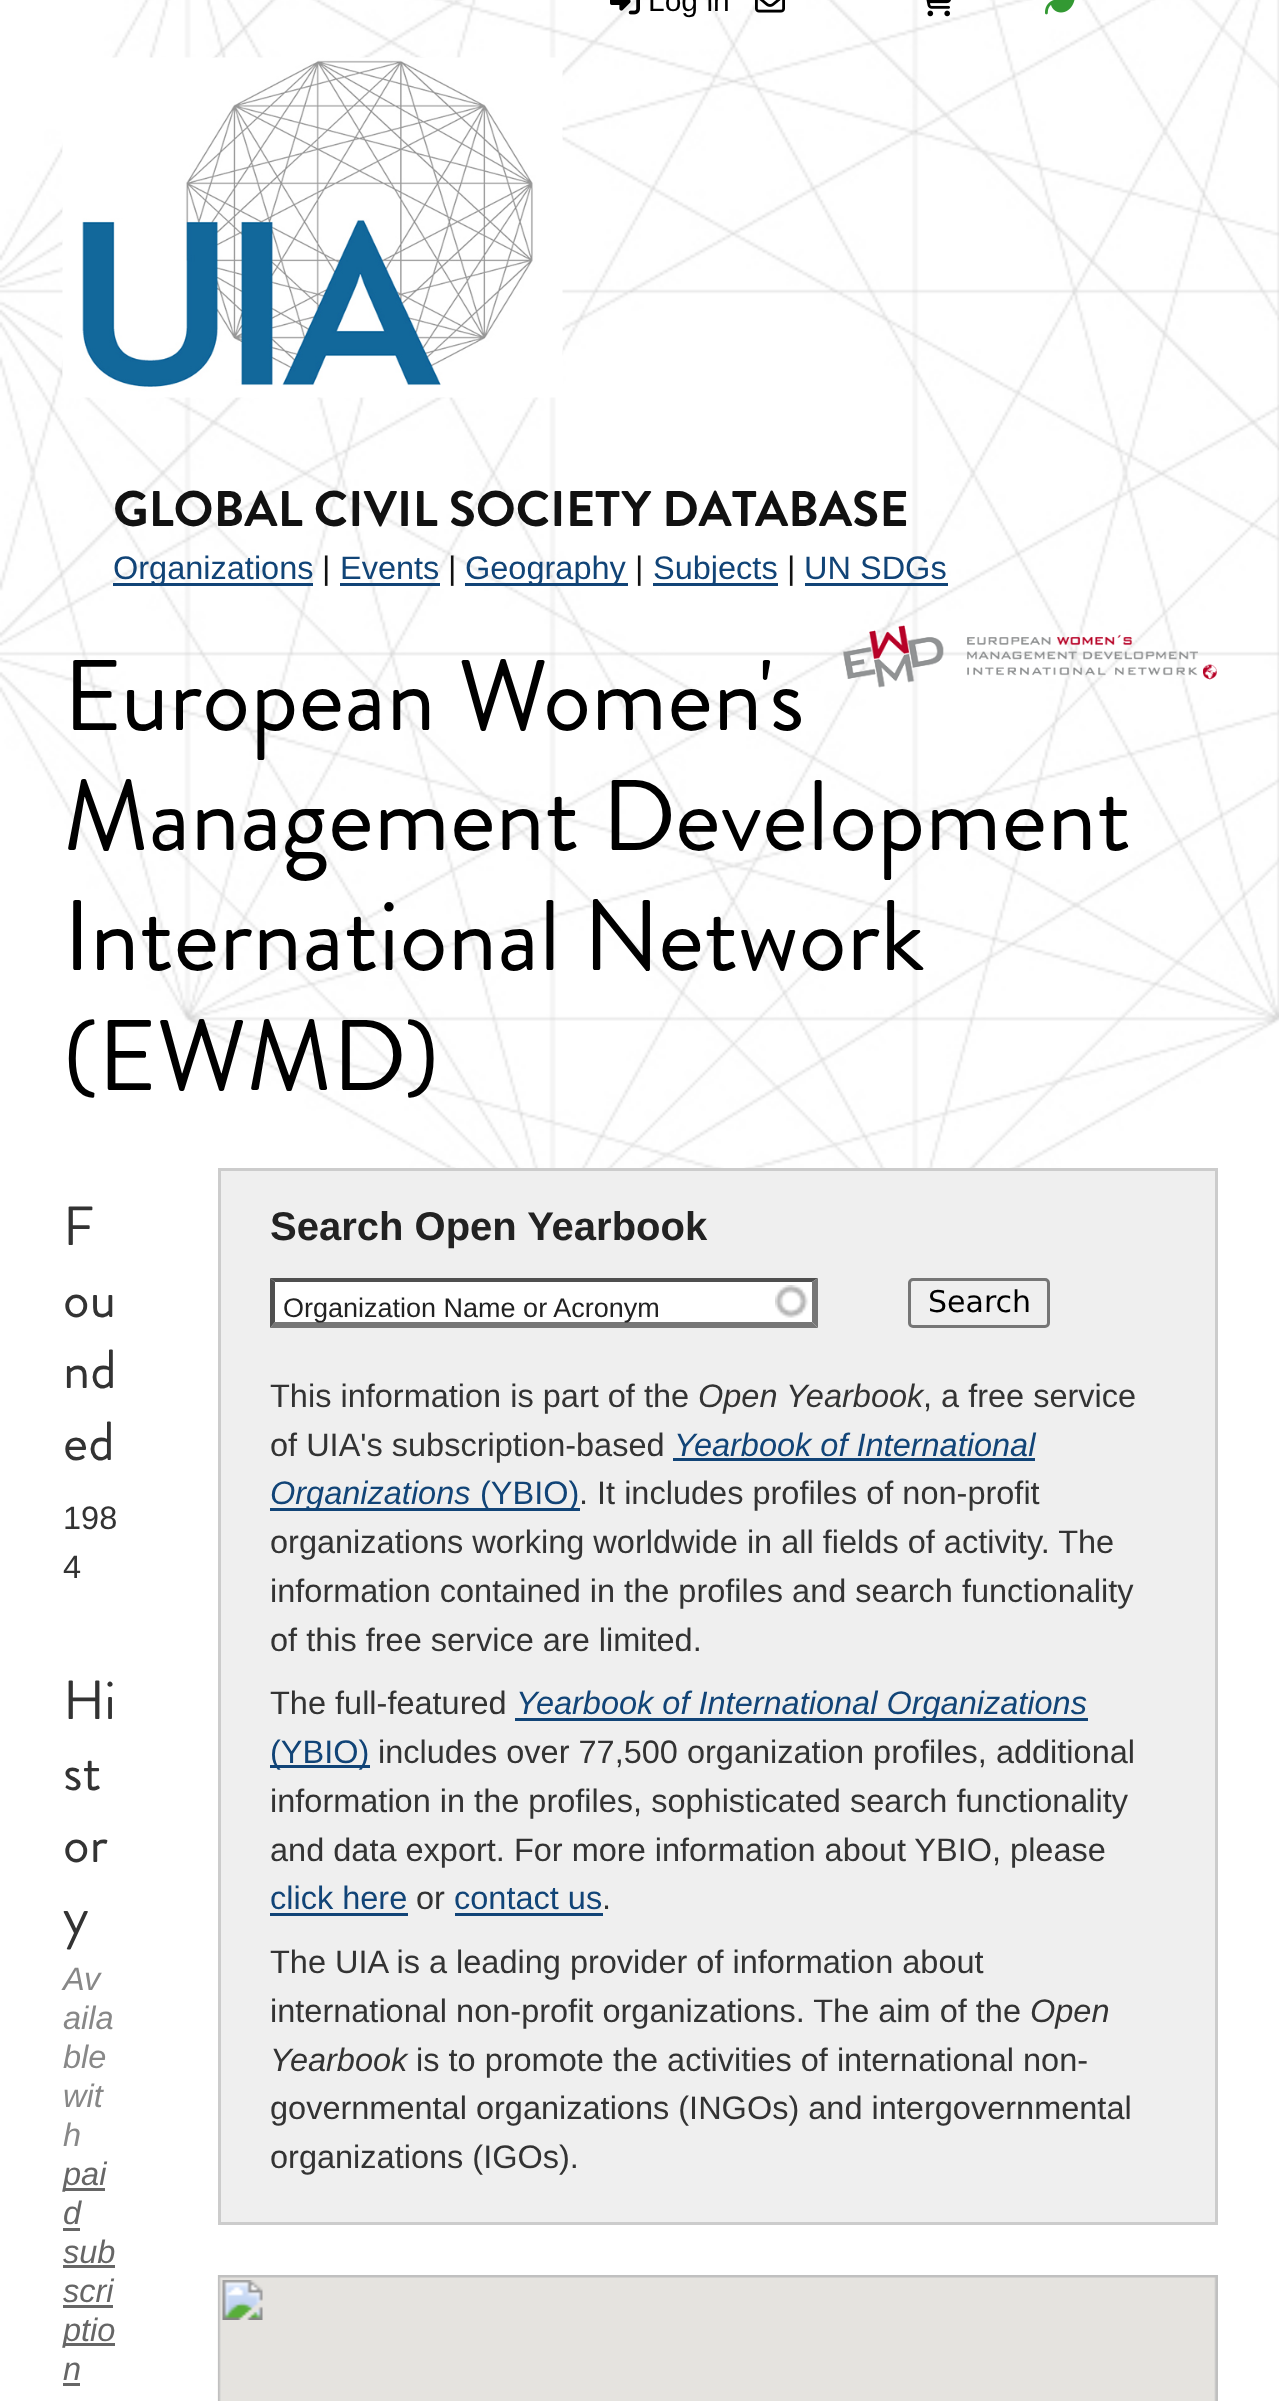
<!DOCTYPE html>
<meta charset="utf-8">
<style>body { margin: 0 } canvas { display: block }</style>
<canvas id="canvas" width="1279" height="2401"></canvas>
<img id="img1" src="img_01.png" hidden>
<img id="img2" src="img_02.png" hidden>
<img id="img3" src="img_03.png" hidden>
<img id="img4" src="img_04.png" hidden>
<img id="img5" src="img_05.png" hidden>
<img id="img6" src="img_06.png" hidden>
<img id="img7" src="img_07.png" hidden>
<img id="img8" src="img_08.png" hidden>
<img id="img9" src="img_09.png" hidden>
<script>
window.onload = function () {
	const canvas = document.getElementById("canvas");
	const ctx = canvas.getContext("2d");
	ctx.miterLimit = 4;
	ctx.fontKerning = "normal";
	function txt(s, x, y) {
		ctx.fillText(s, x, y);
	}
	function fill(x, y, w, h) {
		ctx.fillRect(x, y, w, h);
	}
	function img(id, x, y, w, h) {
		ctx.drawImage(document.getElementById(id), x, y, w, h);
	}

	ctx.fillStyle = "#FFFFFF";
	fill(0, 0, 1279, 2401);
	img("img1", 0, 0, 1279, 1228);
	img("img2", 610, 0, 30, 15);
	img("img3", 755, 0, 30, 13);
	img("img4", 926, 0, 25, 17);
	img("img5", 1045, 0, 30, 15);
	img("img6", 62, 57, 501, 341);
	ctx.fillStyle = "#114477";
	fill(113, 583, 200, 3);
	fill(340, 583, 100, 3);
	fill(465, 583, 163, 3);
	fill(653, 583, 125, 3);
	fill(805, 583, 143, 3);
	img("img7", 843, 625, 374, 63);
	ctx.fillStyle = "#EFEFEF";
	ctx.beginPath();
	ctx.rect(219.5, 1169.5, 997, 1054);
	ctx.fill();
	ctx.strokeStyle = "#CCCCCC";
	ctx.lineWidth = 3;
	ctx.stroke();
	ctx.fillStyle = "#FFFFFF";
	fill(270, 1278, 548, 50);
	img("img8", 775, 1285, 34, 33);
	ctx.fillStyle = "#4F4F4F";
	ctx.beginPath();
	ctx.moveTo(270, 1278);
	ctx.lineTo(818, 1278);
	ctx.lineTo(812, 1282);
	ctx.lineTo(275, 1282);
	ctx.closePath();
	ctx.fill();
	ctx.fillStyle = "#767676";
	ctx.beginPath();
	ctx.moveTo(818, 1278);
	ctx.lineTo(818, 1328);
	ctx.lineTo(812, 1322);
	ctx.lineTo(812, 1282);
	ctx.closePath();
	ctx.fill();
	ctx.beginPath();
	ctx.moveTo(818, 1328);
	ctx.lineTo(270, 1328);
	ctx.lineTo(275, 1322);
	ctx.lineTo(812, 1322);
	ctx.closePath();
	ctx.fill();
	ctx.fillStyle = "#4F4F4F";
	ctx.beginPath();
	ctx.moveTo(270, 1328);
	ctx.lineTo(270, 1278);
	ctx.lineTo(275, 1282);
	ctx.lineTo(275, 1322);
	ctx.closePath();
	ctx.fill();
	ctx.beginPath();
	ctx.roundRect(909.5, 1279.5, 139, 47, 3.5);
	ctx.strokeStyle = "#767676";
	ctx.stroke();
	ctx.fillStyle = "#114477";
	fill(673, 1458, 362, 3);
	fill(270, 1508, 310, 3);
	fill(515, 1718, 573, 3);
	fill(270, 1765, 100, 3);
	fill(270, 1913, 138, 3);
	fill(455, 1913, 148, 3);
	img("img9", 217, 2275, 1001, 126);
	ctx.fillStyle = "#666666";
	fill(63, 2188, 42, 3);
	fill(63, 2228, 17, 3);
	fill(63, 2265, 52, 3);
	fill(63, 2305, 50, 3);
	fill(63, 2343, 52, 3);
	fill(63, 2383, 17, 3);
	ctx.font = "30px Liberation Sans";
	ctx.fillStyle = "#000000";
	txt("Log in", 648, 11);
	ctx.font = "bold 50px Brandon Grotesque";
	ctx.fillStyle = "#111111";
	txt("GLOBAL CIVIL SOCIETY DATABASE", 113, 526);
	ctx.font = "32.5px Liberation Sans";
	ctx.fillStyle = "#114477";
	txt("Organizations", 113, 579);
	ctx.fillStyle = "#111111";
	txt("|", 322, 579);
	ctx.fillStyle = "#114477";
	txt("Events", 340, 579);
	ctx.fillStyle = "#111111";
	txt("|", 448, 579);
	ctx.fillStyle = "#114477";
	txt("Geography", 465, 579);
	ctx.fillStyle = "#111111";
	txt("|", 635, 579);
	ctx.fillStyle = "#114477";
	txt("Subjects", 653, 579);
	ctx.fillStyle = "#111111";
	txt("|", 787, 579);
	ctx.fillStyle = "#114477";
	txt("UN SDGs", 804, 579);
	ctx.font = "100px Brandon Grotesque";
	ctx.fillStyle = "#000000";
	txt("European Women's", 63, 730);
	txt("Management Development", 63, 850);
	txt("International Network", 63, 970);
	txt("(EWMD)", 63, 1090);
	ctx.font = "55px Brandon Grotesque";
	ctx.fillStyle = "#333333";
	txt("F", 63, 1245);
	txt("ou", 63, 1317);
	txt("nd", 63, 1388);
	txt("ed", 63, 1460);
	ctx.font = "bold 40px Liberation Sans";
	ctx.fillStyle = "#222222";
	txt("Search Open Yearbook", 270, 1240);
	ctx.font = "27px Liberation Sans";
	txt("Organization Name or Acronym", 283, 1317);
	ctx.font = "30px DejaVu Sans";
	ctx.fillStyle = "#000000";
	txt("Search", 928, 1312);
	ctx.font = "32.5px Liberation Sans";
	ctx.fillStyle = "#333333";
	txt("This information is part of the", 270, 1407);
	ctx.font = "italic 32.5px Liberation Sans";
	txt("Open Yearbook", 698, 1407);
	ctx.font = "32.5px Liberation Sans";
	txt(", a free service", 923, 1407);
	txt("of UIA's subscription-based", 270, 1456);
	ctx.font = "italic 32.5px Liberation Sans";
	ctx.fillStyle = "#114477";
	txt("Yearbook of International", 674, 1456);
	txt("Organizations", 270, 1504);
	ctx.font = "32.5px Liberation Sans";
	txt("(YBIO)", 480, 1504);
	ctx.fillStyle = "#333333";
	txt(". It includes profiles of non-profit", 579, 1504);
	txt("organizations working worldwide in all fields of activity. The", 270, 1553);
	txt("information contained in the profiles and search functionality", 270, 1602);
	txt("of this free service are limited.", 270, 1651);
	txt("The full-featured", 270, 1714);
	ctx.font = "italic 32.5px Liberation Sans";
	ctx.fillStyle = "#114477";
	txt("Yearbook of International Organizations", 516, 1714);
	ctx.font = "32.5px Liberation Sans";
	txt("(YBIO)", 270, 1763);
	ctx.fillStyle = "#333333";
	txt("includes over 77,500 organization profiles, additional", 378, 1763);
	txt("information in the profiles, sophisticated search functionality", 270, 1812);
	txt("and data export. For more information about YBIO, please", 270, 1861);
	ctx.fillStyle = "#114477";
	txt("click here", 270, 1909);
	ctx.fillStyle = "#333333";
	txt("or", 416, 1909);
	ctx.fillStyle = "#114477";
	txt("contact us", 454, 1909);
	ctx.fillStyle = "#333333";
	txt(".", 602, 1909);
	txt("The UIA is a leading provider of information about", 270, 1973);
	txt("international non-profit organizations. The aim of the", 270, 2022);
	ctx.font = "italic 32.5px Liberation Sans";
	txt("Open", 1030, 2022);
	txt("Yearbook", 270, 2071);
	ctx.font = "32.5px Liberation Sans";
	txt("is to promote the activities of international non-", 416, 2071);
	txt("governmental organizations (INGOs) and intergovernmental", 270, 2119);
	txt("organizations (IGOs).", 270, 2168);
	txt("198", 63, 1529);
	txt("4", 63, 1578);
	ctx.font = "55px Brandon Grotesque";
	txt("Hi", 63, 1719);
	txt("st", 63, 1790);
	txt("or", 63, 1862);
	txt("y", 63, 1933);
	ctx.font = "italic 32.5px Liberation Sans";
	ctx.fillStyle = "#888888";
	txt("Av", 63, 1990);
	txt("aila", 63, 2029);
	txt("ble", 63, 2068);
	txt("wit", 63, 2107);
	txt("h", 63, 2146);
	ctx.fillStyle = "#666666";
	txt("pai", 63, 2185);
	txt("d", 63, 2224);
	txt("sub", 63, 2263);
	txt("scri", 63, 2302);
	txt("ptio", 63, 2341);
	txt("n", 63, 2380);
};
</script>
